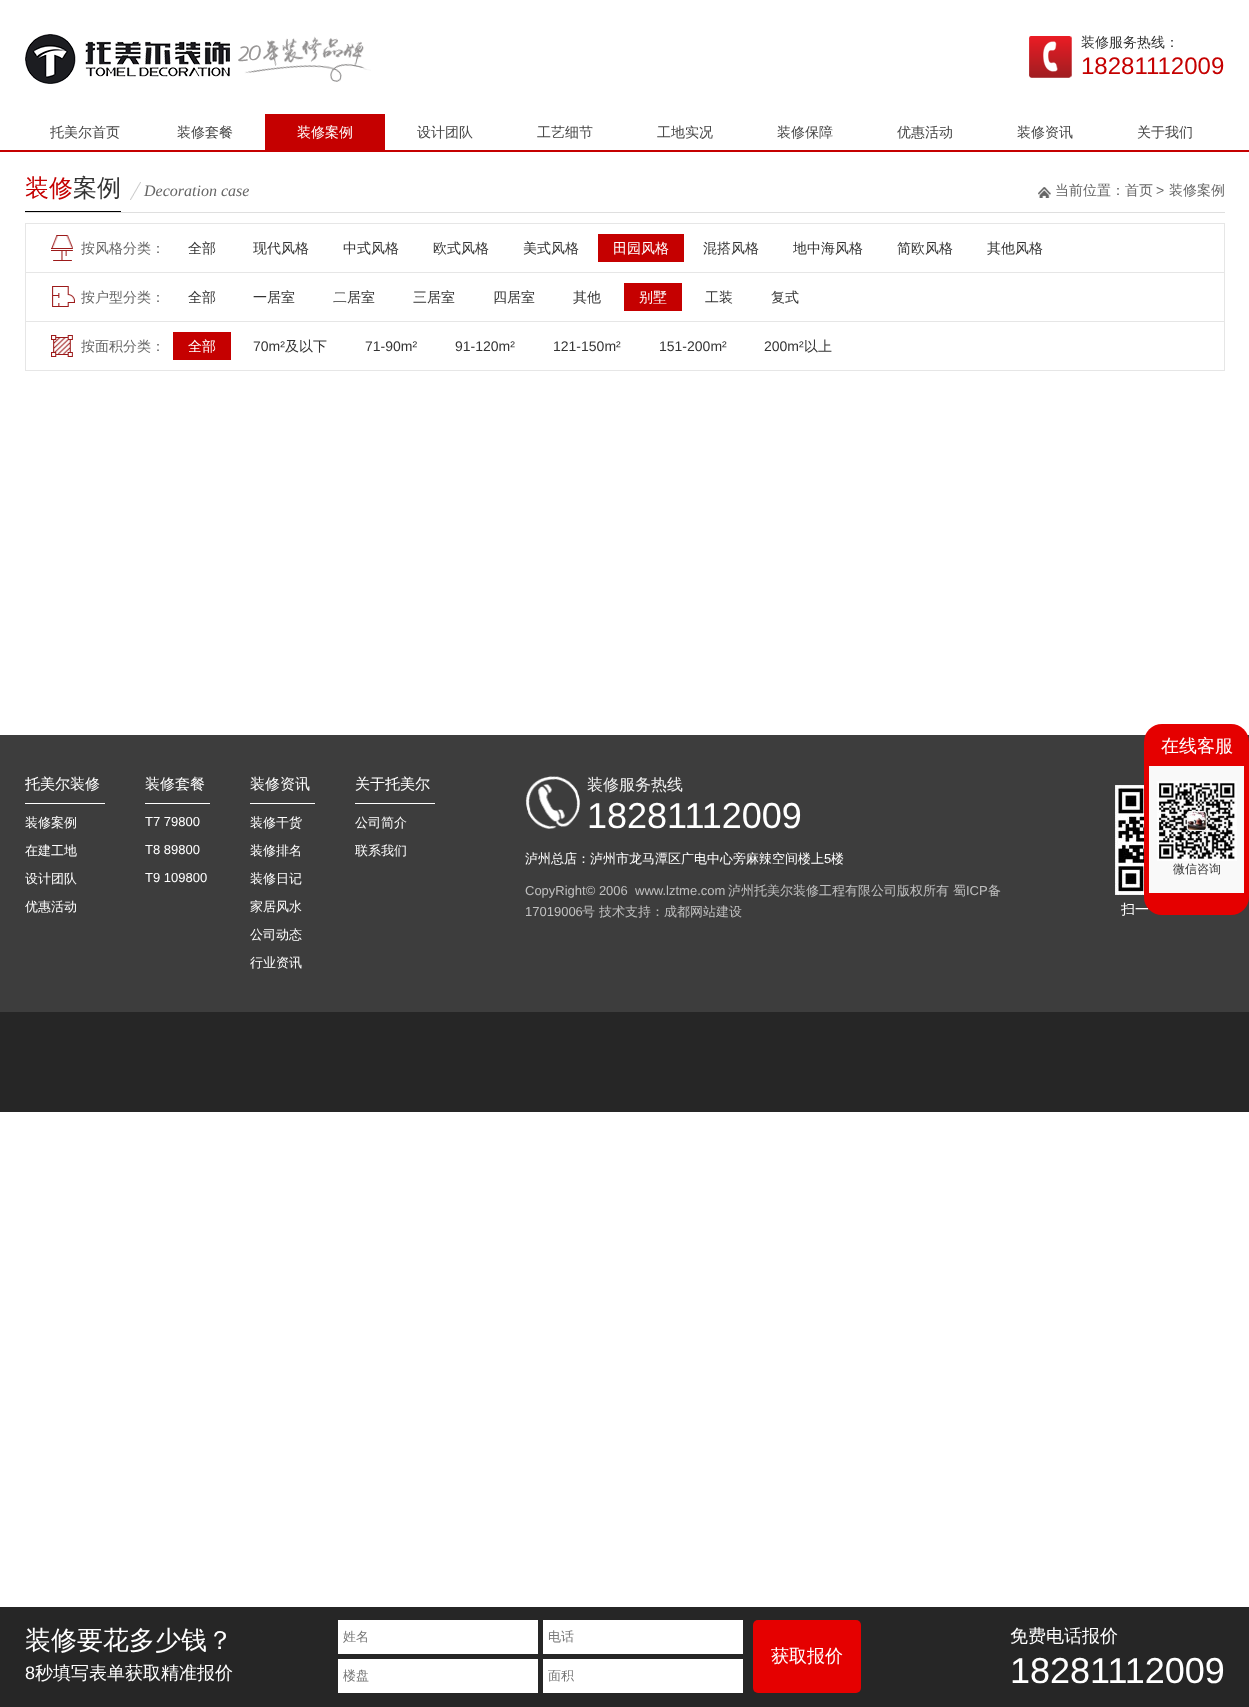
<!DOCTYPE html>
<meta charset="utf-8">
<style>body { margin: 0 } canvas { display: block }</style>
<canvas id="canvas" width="1249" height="1707"></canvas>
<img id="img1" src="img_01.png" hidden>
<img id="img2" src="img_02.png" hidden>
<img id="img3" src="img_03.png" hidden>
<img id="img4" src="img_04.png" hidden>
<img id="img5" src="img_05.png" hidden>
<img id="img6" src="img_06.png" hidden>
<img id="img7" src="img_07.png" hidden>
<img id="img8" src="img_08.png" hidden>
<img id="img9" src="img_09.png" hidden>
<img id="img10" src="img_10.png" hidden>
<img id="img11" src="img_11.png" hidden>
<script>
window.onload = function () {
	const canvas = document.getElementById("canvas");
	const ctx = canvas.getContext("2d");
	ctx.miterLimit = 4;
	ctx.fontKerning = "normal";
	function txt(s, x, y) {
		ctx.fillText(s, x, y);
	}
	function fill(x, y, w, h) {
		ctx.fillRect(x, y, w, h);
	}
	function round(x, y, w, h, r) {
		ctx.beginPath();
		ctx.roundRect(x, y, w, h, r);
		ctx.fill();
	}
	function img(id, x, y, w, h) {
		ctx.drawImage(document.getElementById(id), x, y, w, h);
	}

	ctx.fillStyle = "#FFFFFF";
	fill(0, 0, 1249, 1707);
	img("img1", 25, 34, 205, 50);
	img("img2", 238, 36, 133, 46);
	img("img3", 1029, 36, 43, 42);
	ctx.fillStyle = "#C50000";
	fill(0, 150, 1249, 2);
	fill(265, 114, 120, 36);
	ctx.fillStyle = "#DFDFDF";
	fill(25, 212, 1200, 1);
	ctx.fillStyle = "#000000";
	fill(25, 211, 96, 1);
	img("img4", 130, 182, 11, 18);
	img("img5", 1038, 187, 13, 11);
	ctx.fillStyle = "#E6E6E6";
	fill(25, 223, 1200, 148);
	ctx.fillStyle = "#FFFFFF";
	fill(26, 224, 1198, 48);
	img("img6", 51, 235, 22, 26);
	ctx.fillStyle = "#C50000";
	fill(598, 234, 86, 28);
	ctx.fillStyle = "#FFFFFF";
	fill(26, 273, 1198, 48);
	img("img7", 52, 286, 23, 21);
	ctx.fillStyle = "#C50000";
	fill(624, 283, 58, 28);
	ctx.fillStyle = "#FFFFFF";
	fill(26, 322, 1198, 48);
	img("img8", 51, 335, 22, 22);
	ctx.fillStyle = "#C50000";
	fill(173, 332, 58, 28);
	ctx.fillStyle = "#3D3D3D";
	fill(0, 735, 1249, 277);
	ctx.fillStyle = "#FFFFFF";
	fill(25, 803, 80, 1);
	fill(145, 803, 65, 1);
	fill(250, 803, 65, 1);
	fill(355, 803, 80, 1);
	img("img9", 525, 776, 56, 53);
	img("img10", 1115, 785, 29, 110);
	ctx.fillStyle = "#262626";
	fill(0, 1012, 1249, 100);
	fill(0, 1607, 1249, 100);
	ctx.fillStyle = "#FFFFFF";
	fill(338, 1620, 200, 34);
	fill(543, 1620, 200, 34);
	fill(338, 1659, 200, 34);
	fill(543, 1659, 200, 34);
	ctx.fillStyle = "#E50000";
	round(753, 1620, 108, 73, 5);
	ctx.font = "500 14px WenQuanYi Zen Hei";
	ctx.fillStyle = "#333333";
	txt("装修服务热线：", 1081, 47);
	ctx.font = "24px Liberation Sans";
	ctx.fillStyle = "#C50000";
	txt("18281112009", 1081, 74);
	ctx.font = "500 14px WenQuanYi Zen Hei";
	ctx.fillStyle = "#444444";
	txt("托美尔首页", 50, 137);
	txt("装修套餐", 177, 137);
	ctx.fillStyle = "#FFFFFF";
	txt("装修案例", 297, 137);
	ctx.fillStyle = "#444444";
	txt("设计团队", 417, 137);
	txt("工艺细节", 537, 137);
	txt("工地实况", 657, 137);
	txt("装修保障", 777, 137);
	txt("优惠活动", 897, 137);
	txt("装修资讯", 1017, 137);
	txt("关于我们", 1137, 137);
	ctx.font = "500 24px WenQuanYi Zen Hei";
	ctx.fillStyle = "#C50000";
	txt("装修", 25, 196);
	ctx.fillStyle = "#333333";
	txt("案例", 73, 196);
	ctx.font = "italic 16px Liberation Serif";
	ctx.fillStyle = "#666666";
	txt("Decoration case", 144, 196);
	ctx.font = "500 14px WenQuanYi Zen Hei";
	txt("当前位置：首页", 1055, 195);
	ctx.font = "14px Liberation Sans";
	txt(">", 1156, 195);
	ctx.font = "500 14px WenQuanYi Zen Hei";
	txt("装修案例", 1169, 195);
	txt("按风格分类：", 81, 253);
	ctx.fillStyle = "#333333";
	txt("全部", 188, 253);
	txt("现代风格", 253, 253);
	txt("中式风格", 343, 253);
	txt("欧式风格", 433, 253);
	txt("美式风格", 523, 253);
	ctx.fillStyle = "#FFFFFF";
	txt("田园风格", 613, 253);
	ctx.fillStyle = "#333333";
	txt("混搭风格", 703, 253);
	txt("地中海风格", 793, 253);
	txt("简欧风格", 897, 253);
	txt("其他风格", 987, 253);
	ctx.fillStyle = "#666666";
	txt("按户型分类：", 81, 302);
	ctx.fillStyle = "#333333";
	txt("全部", 188, 302);
	txt("一居室", 253, 302);
	txt("二居室", 333, 302);
	txt("三居室", 413, 302);
	txt("四居室", 493, 302);
	txt("其他", 573, 302);
	ctx.fillStyle = "#FFFFFF";
	txt("别墅", 639, 302);
	ctx.fillStyle = "#333333";
	txt("工装", 705, 302);
	txt("复式", 771, 302);
	ctx.fillStyle = "#666666";
	txt("按面积分类：", 81, 351);
	ctx.fillStyle = "#FFFFFF";
	txt("全部", 188, 351);
	ctx.font = "14px Liberation Sans";
	ctx.fillStyle = "#333333";
	txt("70m²", 253, 351);
	ctx.font = "500 14px WenQuanYi Zen Hei";
	txt("及以下", 285, 351);
	ctx.font = "14px Liberation Sans";
	txt("71-90m²", 365, 351);
	txt("91-120m²", 455, 351);
	txt("121-150m²", 553, 351);
	txt("151-200m²", 659, 351);
	txt("200m²", 764, 351);
	ctx.font = "500 14px WenQuanYi Zen Hei";
	txt("以上", 804, 351);
	ctx.font = "500 15px WenQuanYi Zen Hei";
	ctx.fillStyle = "#FFFFFF";
	txt("托美尔装修", 25, 789);
	ctx.font = "500 13px WenQuanYi Zen Hei";
	txt("装修案例", 25, 827);
	txt("在建工地", 25, 855);
	txt("设计团队", 25, 883);
	txt("优惠活动", 25, 911);
	ctx.font = "500 15px WenQuanYi Zen Hei";
	txt("装修套餐", 145, 789);
	ctx.font = "13px Liberation Sans";
	txt("T7 79800", 145, 826);
	txt("T8 89800", 145, 854);
	txt("T9 109800", 145, 882);
	ctx.font = "500 15px WenQuanYi Zen Hei";
	txt("装修资讯", 250, 789);
	ctx.font = "500 13px WenQuanYi Zen Hei";
	txt("装修干货", 250, 827);
	txt("装修排名", 250, 855);
	txt("装修日记", 250, 883);
	txt("家居风水", 250, 911);
	txt("公司动态", 250, 939);
	txt("行业资讯", 250, 967);
	ctx.font = "500 15px WenQuanYi Zen Hei";
	txt("关于托美尔", 355, 789);
	ctx.font = "500 13px WenQuanYi Zen Hei";
	txt("公司简介", 355, 827);
	txt("联系我们", 355, 855);
	ctx.font = "500 16px WenQuanYi Zen Hei";
	ctx.fillStyle = "#F0F0F0";
	txt("装修服务热线", 587, 790);
	ctx.font = "36px Liberation Sans";
	ctx.fillStyle = "#FFFFFF";
	txt("18281112009", 587, 828);
	ctx.font = "500 13px WenQuanYi Zen Hei";
	txt("泸州总店：泸州市龙马潭区广电中心旁麻辣空间楼上", 525, 863);
	ctx.font = "13px Liberation Sans";
	txt("5", 824, 863);
	ctx.font = "500 13px WenQuanYi Zen Hei";
	txt("楼", 831, 863);
	ctx.font = "13px Liberation Sans";
	ctx.fillStyle = "#C0C0C0";
	txt("CopyRight© 2006  www.lztme.com", 525, 895);
	ctx.font = "500 13px WenQuanYi Zen Hei";
	txt("泸州托美尔装修工程有限公司版权所有 蜀", 728, 895);
	ctx.font = "13px Liberation Sans";
	txt("ICP", 966, 895);
	ctx.font = "500 13px WenQuanYi Zen Hei";
	txt("备", 988, 895);
	ctx.font = "13px Liberation Sans";
	txt("17019006", 525, 916);
	ctx.font = "500 13px WenQuanYi Zen Hei";
	txt("号 技术支持：成都网站建设", 582, 916);
	ctx.font = "500 14px WenQuanYi Zen Hei";
	ctx.fillStyle = "#FFFFFF";
	txt("扫一", 1121, 914);
	ctx.fillStyle = "#E50000";
	round(1144, 724, 105, 191, 18);
	ctx.font = "500 18px WenQuanYi Zen Hei";
	ctx.fillStyle = "#FFFFFF";
	txt("在线客服", 1161, 752);
	ctx.fillStyle = "#F9F9F9";
	fill(1149, 766, 95, 127);
	img("img11", 1157, 781, 80, 80);
	ctx.font = "500 12px WenQuanYi Zen Hei";
	ctx.fillStyle = "#333333";
	txt("微信咨询", 1173, 873);
	ctx.font = "500 26px WenQuanYi Zen Hei";
	ctx.fillStyle = "#FFFFFF";
	txt("装修要花多少钱？", 25, 1649);
	ctx.font = "18px Liberation Sans";
	txt("8", 25, 1679);
	ctx.font = "500 18px WenQuanYi Zen Hei";
	txt("秒填写表单获取精准报价", 35, 1679);
	ctx.font = "500 13px WenQuanYi Zen Hei";
	ctx.fillStyle = "#757575";
	txt("姓名", 343, 1641);
	txt("电话", 548, 1641);
	txt("楼盘", 343, 1680);
	txt("面积", 548, 1680);
	ctx.font = "500 18px WenQuanYi Zen Hei";
	ctx.fillStyle = "#FFFFFF";
	txt("获取报价", 771, 1662);
	txt("免费电话报价", 1010, 1642);
	ctx.font = "36px Liberation Sans";
	txt("18281112009", 1010, 1683);
};
</script>
